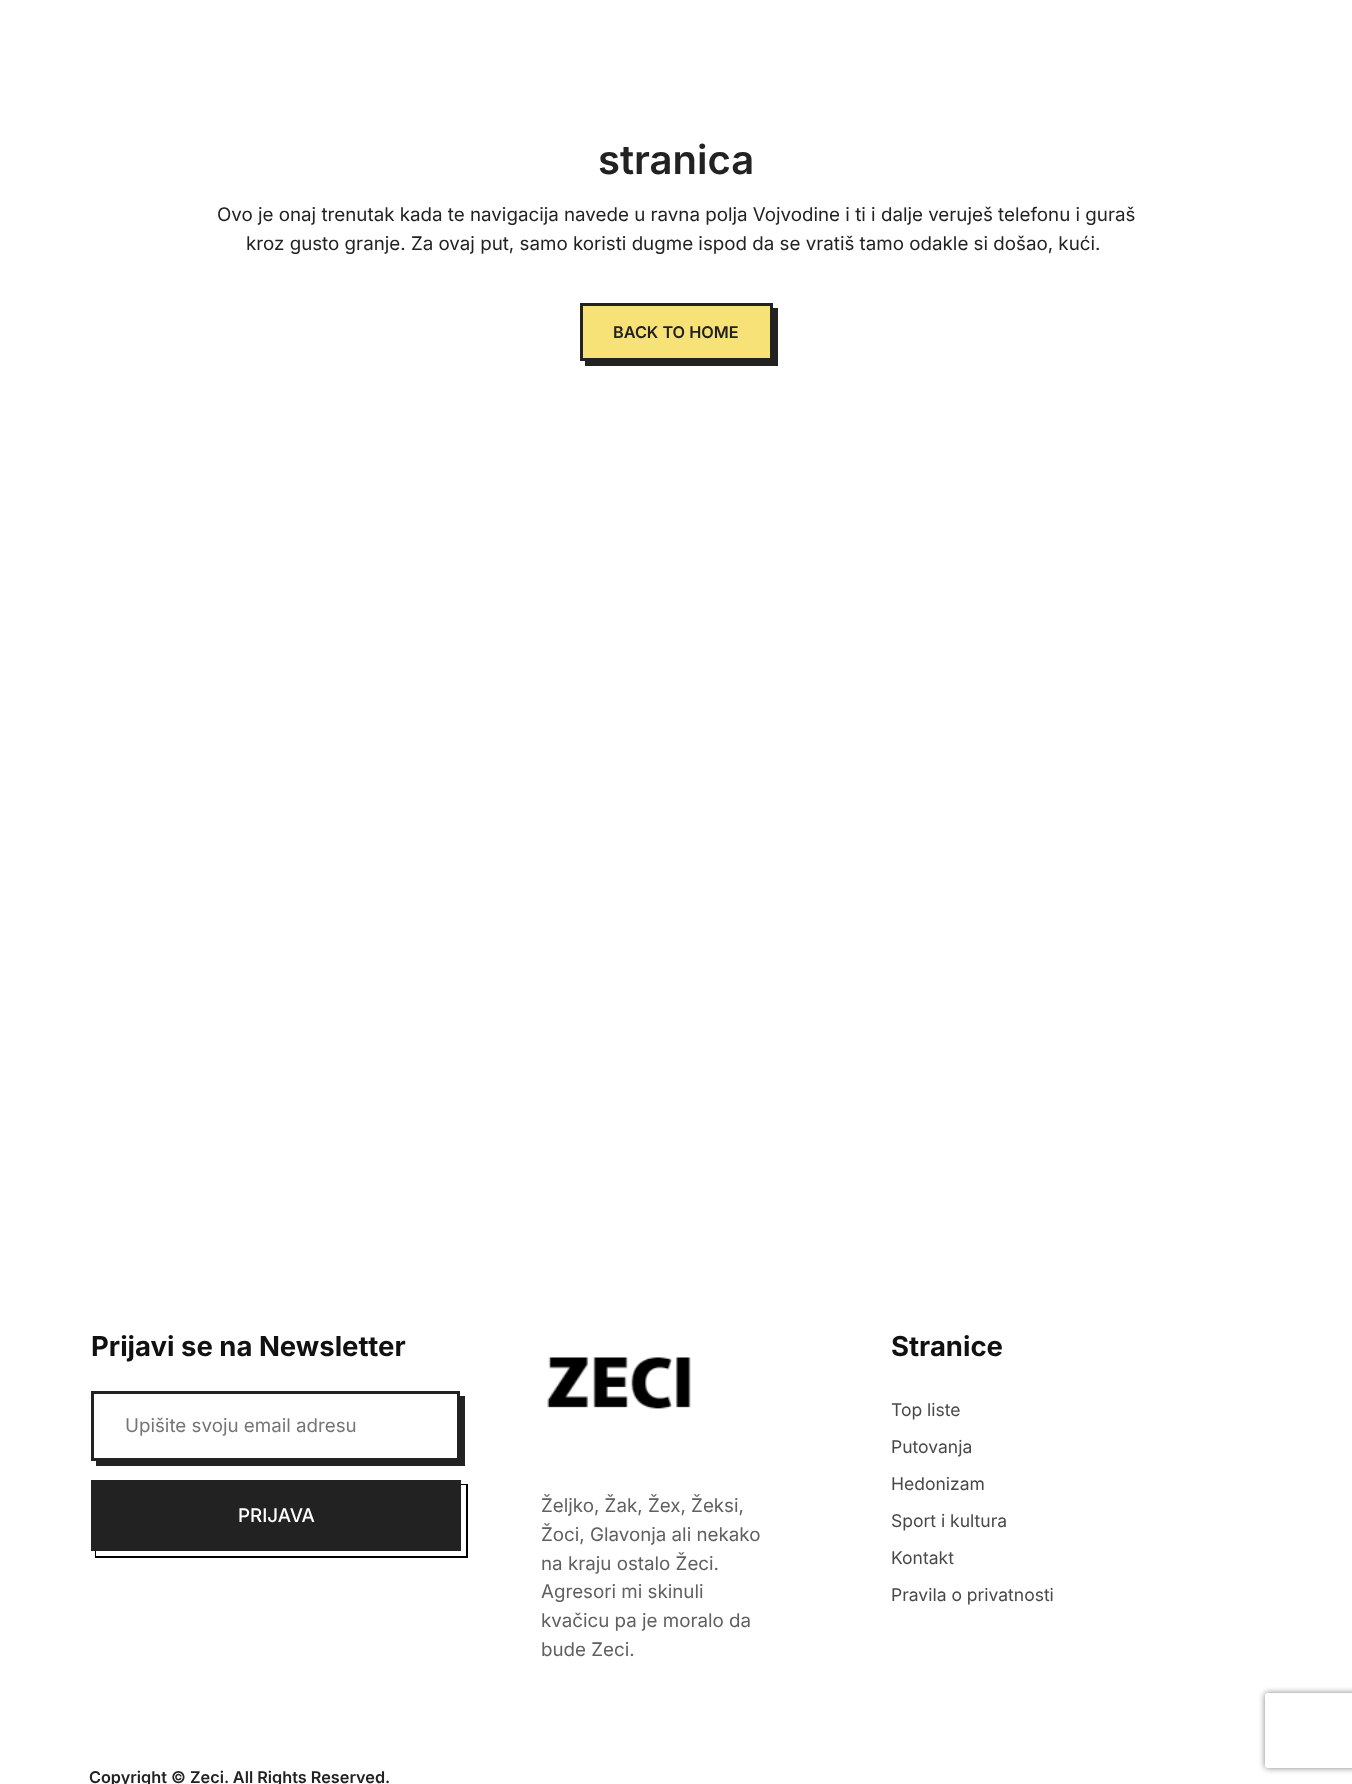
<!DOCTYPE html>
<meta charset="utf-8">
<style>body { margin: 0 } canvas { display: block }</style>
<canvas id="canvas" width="1352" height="1784"></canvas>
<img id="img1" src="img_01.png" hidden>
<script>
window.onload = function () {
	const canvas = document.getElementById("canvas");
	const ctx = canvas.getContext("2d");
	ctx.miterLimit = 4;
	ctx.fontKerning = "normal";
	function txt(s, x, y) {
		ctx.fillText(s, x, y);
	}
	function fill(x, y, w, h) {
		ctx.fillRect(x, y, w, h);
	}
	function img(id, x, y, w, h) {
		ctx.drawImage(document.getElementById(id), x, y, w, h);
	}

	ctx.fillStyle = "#FFFFFF";
	fill(0, 0, 1352, 1784);
	ctx.fillStyle = "#222222";
	ctx.beginPath();
	ctx.moveTo(585, 361);
	ctx.lineTo(585, 366);
	ctx.lineTo(778, 366);
	ctx.lineTo(778, 308);
	ctx.lineTo(772, 308);
	ctx.lineTo(772, 361);
	ctx.closePath();
	ctx.fill();
	ctx.fillStyle = "#F7E277";
	ctx.beginPath();
	ctx.rect(581.5, 304.5, 190, 55);
	ctx.fill();
	ctx.strokeStyle = "#222222";
	ctx.lineWidth = 3;
	ctx.stroke();
	ctx.fillStyle = "#222222";
	ctx.beginPath();
	ctx.moveTo(96, 1461);
	ctx.lineTo(96, 1466);
	ctx.lineTo(465, 1466);
	ctx.lineTo(465, 1396);
	ctx.lineTo(460, 1396);
	ctx.lineTo(460, 1461);
	ctx.closePath();
	ctx.fill();
	ctx.strokeRect(92.5, 1392.5, 366, 67);
	ctx.fillStyle = "#000000";
	ctx.beginPath();
	ctx.moveTo(95, 1551);
	ctx.lineTo(95, 1558);
	ctx.lineTo(468, 1558);
	ctx.lineTo(468, 1484);
	ctx.lineTo(461, 1484);
	ctx.lineTo(461, 1551);
	ctx.closePath();
	ctx.fill();
	ctx.fillStyle = "#FFFFFF";
	ctx.beginPath();
	ctx.moveTo(96, 1551);
	ctx.lineTo(96, 1556);
	ctx.lineTo(466, 1556);
	ctx.lineTo(466, 1485);
	ctx.lineTo(461, 1485);
	ctx.lineTo(461, 1551);
	ctx.closePath();
	ctx.fill();
	ctx.fillStyle = "#222222";
	fill(91, 1480, 370, 71);
	img("img1", 547, 1357, 144, 52);
	ctx.save();
	ctx.beginPath();
	ctx.moveTo(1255, 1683);
	ctx.lineTo(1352, 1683);
	ctx.lineTo(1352, 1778);
	ctx.lineTo(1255, 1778);
	ctx.closePath();
	ctx.moveTo(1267.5, 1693);
	ctx.lineTo(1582.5, 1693);
	ctx.bezierCurveTo(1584, 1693, 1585, 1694, 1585, 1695.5);
	ctx.lineTo(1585, 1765.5);
	ctx.bezierCurveTo(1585, 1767, 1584, 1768, 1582.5, 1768);
	ctx.lineTo(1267.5, 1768);
	ctx.bezierCurveTo(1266, 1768, 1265, 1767, 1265, 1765.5);
	ctx.lineTo(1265, 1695.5);
	ctx.bezierCurveTo(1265, 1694, 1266, 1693, 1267.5, 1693);
	ctx.closePath();
	ctx.clip("evenodd");
	ctx.fillStyle = "#808080";
	ctx.filter = "blur(3px)";
	ctx.beginPath();
	ctx.roundRect(1265, 1693, 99, 75, 2.5);
	ctx.fill();
	ctx.filter = "none";
	ctx.restore();
	ctx.font = "600 40px Inter";
	txt("stranica", 598, 174);
	ctx.font = "18.75px Inter";
	txt("Ovo je onaj trenutak kada te navigacija navede u ravna polja Vojvodine i ti i dalje veruješ telefonu i guraš", 217, 221);
	txt("kroz gusto granje. Za ovaj put, samo koristi dugme ispod da se vratiš tamo odakle si došao, kući.", 246, 250);
	ctx.font = "600 16.25px Inter";
	txt("BACK TO HOME", 613, 338);
	ctx.font = "bold 27.5px Inter";
	ctx.fillStyle = "#111111";
	txt("Prijavi se na Newsletter", 91, 1356);
	ctx.font = "18.75px Inter";
	ctx.fillStyle = "#757575";
	txt("Upišite svoju email adresu", 125, 1432);
	ctx.font = "500 18.75px Inter";
	ctx.fillStyle = "#FFFFFF";
	txt("PRIJAVA", 238, 1522);
	ctx.font = "18.75px Inter";
	ctx.fillStyle = "#606060";
	txt("Željko, Žak, Žex, Žeksi,", 541, 1512);
	txt("Žoci, Glavonja ali nekako", 541, 1541);
	txt("na kraju ostalo Žeci.", 541, 1570);
	txt("Agresori mi skinuli", 541, 1598);
	txt("kvačicu pa je moralo da", 541, 1627);
	txt("bude Zeci.", 541, 1656);
	ctx.font = "bold 27.5px Inter";
	ctx.fillStyle = "#111111";
	txt("Stranice", 891, 1356);
	ctx.font = "17.5px Inter";
	ctx.fillStyle = "#484848";
	txt("Top liste", 891, 1416);
	txt("Putovanja", 891, 1453);
	txt("Hedonizam", 891, 1490);
	txt("Sport i kultura", 891, 1527);
	txt("Kontakt", 891, 1564);
	txt("Pravila o privatnosti", 891, 1601);
	ctx.font = "600 16.25px Inter";
	ctx.fillStyle = "#222222";
	txt("Copyright © Zeci. All Rights Reserved.", 89, 1783);
};
</script>
